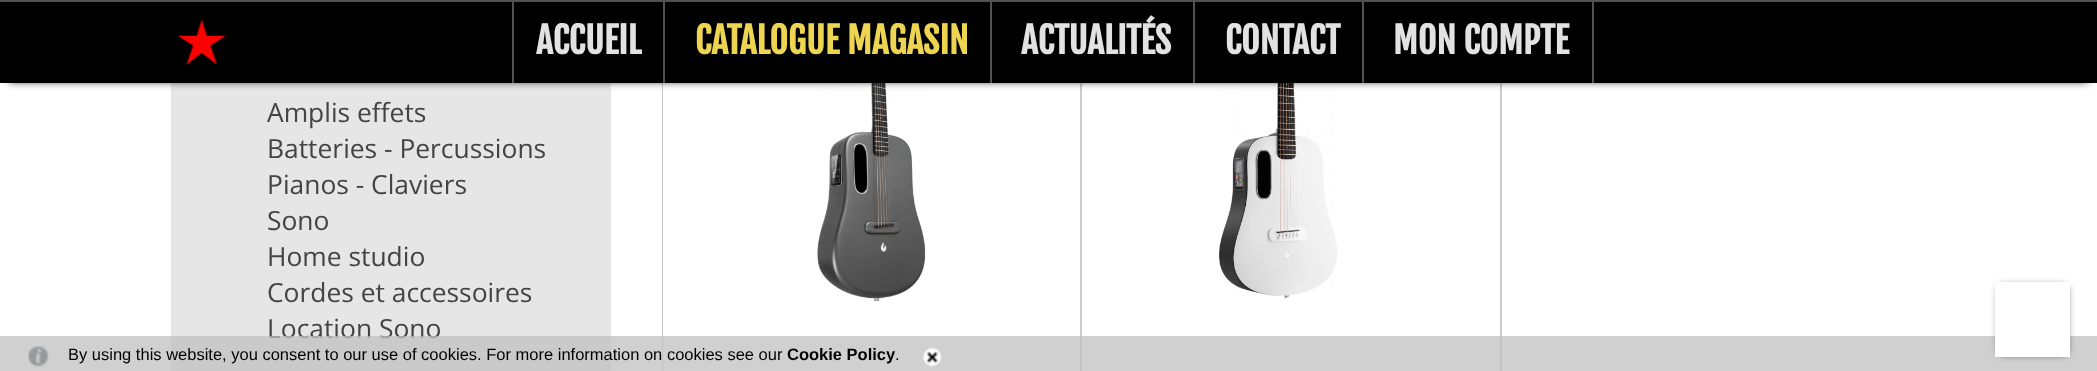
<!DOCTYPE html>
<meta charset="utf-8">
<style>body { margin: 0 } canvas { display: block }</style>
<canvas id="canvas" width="2097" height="371"></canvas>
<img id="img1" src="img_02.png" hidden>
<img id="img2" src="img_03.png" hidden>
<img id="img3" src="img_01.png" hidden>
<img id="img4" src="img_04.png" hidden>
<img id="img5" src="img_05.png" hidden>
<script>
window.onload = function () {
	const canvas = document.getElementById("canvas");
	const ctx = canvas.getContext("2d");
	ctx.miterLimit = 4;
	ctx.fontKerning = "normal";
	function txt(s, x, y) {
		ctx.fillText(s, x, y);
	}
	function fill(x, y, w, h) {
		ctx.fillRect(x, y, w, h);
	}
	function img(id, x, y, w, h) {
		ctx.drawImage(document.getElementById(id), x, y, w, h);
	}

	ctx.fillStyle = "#FFFFFF";
	fill(0, 0, 2097, 371);
	ctx.fillStyle = "#E6E6E6";
	fill(171, 83, 440, 288);
	ctx.strokeStyle = "#CCCCCC";
	ctx.lineWidth = 2;
	ctx.strokeRect(663, -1, 418, 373);
	ctx.fillStyle = "#FFFFFF";
	fill(663, 83, 1, 288);
	img("img1", 817, 83, 109, 218);
	ctx.strokeRect(1081, -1, 420, 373);
	img("img2", 1219, 83, 119, 215);
	ctx.fillStyle = "#000000";
	ctx.filter = "blur(4px)";
	ctx.beginPath();
	ctx.rect(9, 17, 2079, 64);
	ctx.fill();
	ctx.filter = "none";
	fill(0, 2, 2097, 81);
	ctx.fillStyle = "#535252";
	fill(0, 0, 2097, 2);
	img("img3", 178, 19, 48, 46);
	fill(663, 2, 2, 81);
	fill(512, 2, 2, 81);
	fill(990, 2, 2, 81);
	fill(1193, 2, 2, 81);
	fill(1362, 2, 2, 81);
	fill(1592, 2, 2, 81);
	ctx.font = "bold 35.75px Fjalla One";
	ctx.fillStyle = "#E2E2E2";
	txt("ACCUEIL", 536, 54);
	ctx.fillStyle = "#EED551";
	txt("CATALOGUE MAGASIN", 695, 54);
	ctx.fillStyle = "#E2E2E2";
	txt("ACTUALITÉS", 1021, 54);
	txt("CONTACT", 1225, 54);
	txt("MON COMPTE", 1393, 54);
	ctx.font = "26.4px Open Sans";
	ctx.fillStyle = "#444444";
	txt("Amplis effets", 267, 122);
	txt("Batteries - Percussions", 267, 158);
	txt("Pianos - Claviers", 267, 194);
	txt("Sono", 267, 230);
	txt("Home studio", 267, 266);
	txt("Cordes et accessoires", 267, 302);
	txt("Location Sono", 267, 338);
	ctx.fillStyle = "rgba(192, 192, 192, 0.75)";
	fill(0, 336, 2097, 35);
	ctx.fillStyle = "#000000";
	ctx.filter = "blur(4px)";
	ctx.beginPath();
	ctx.rect(2000, 287, 66, 66);
	ctx.fill();
	ctx.filter = "none";
	ctx.fillStyle = "#FFFFFF";
	fill(1995, 282, 75, 75);
	img("img4", 28, 346, 21, 21);
	ctx.font = "16.5px Liberation Sans";
	ctx.fillStyle = "#000000";
	txt("By using this website, you consent to our use of cookies. For more information on cookies see our", 68, 360);
	ctx.font = "bold 16.5px Liberation Sans";
	txt("Cookie Policy", 787, 360);
	ctx.font = "16.5px Liberation Sans";
	txt(".", 895, 360);
	img("img5", 922, 347, 20, 20);
};
</script>
